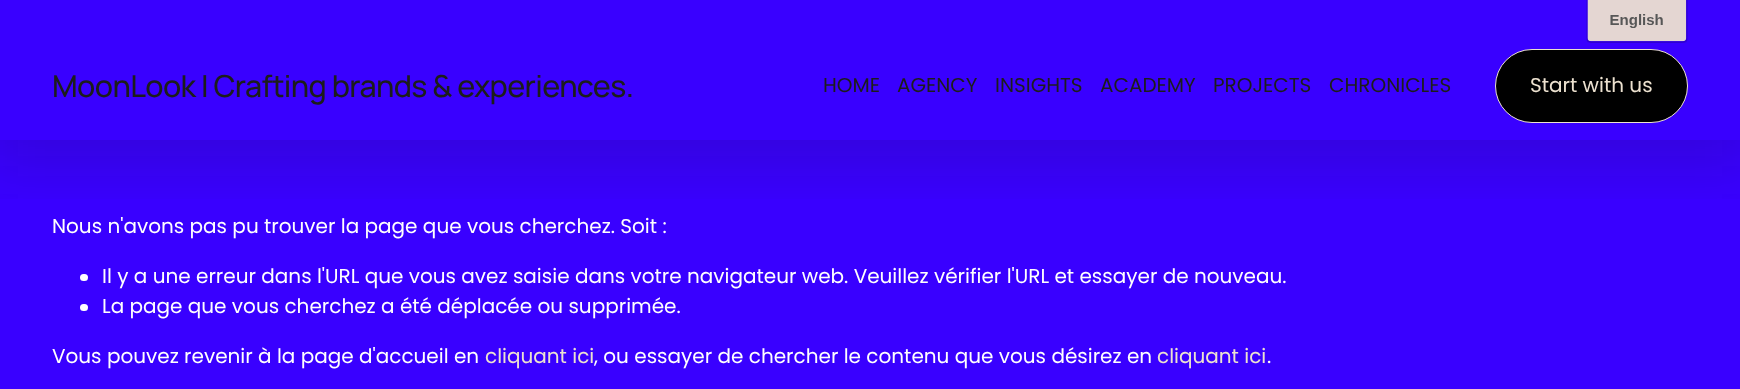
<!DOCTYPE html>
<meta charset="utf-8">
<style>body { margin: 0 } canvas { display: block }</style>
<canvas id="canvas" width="1740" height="389"></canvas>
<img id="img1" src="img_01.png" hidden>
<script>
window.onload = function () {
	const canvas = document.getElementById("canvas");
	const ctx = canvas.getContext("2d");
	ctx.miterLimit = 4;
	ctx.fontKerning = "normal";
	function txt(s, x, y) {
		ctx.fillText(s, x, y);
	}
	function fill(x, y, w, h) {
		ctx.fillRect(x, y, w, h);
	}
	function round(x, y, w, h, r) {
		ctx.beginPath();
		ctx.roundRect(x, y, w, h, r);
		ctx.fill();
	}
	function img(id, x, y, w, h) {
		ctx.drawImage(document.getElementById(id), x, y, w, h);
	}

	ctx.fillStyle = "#3900FF";
	fill(0, 0, 1740, 389);
	ctx.save();
	ctx.beginPath();
	ctx.rect(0, 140, 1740, 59);
	ctx.clip();
	ctx.fillStyle = "rgba(29, 29, 27, 0.15)";
	ctx.filter = "blur(30px)";
	ctx.beginPath();
	ctx.rect(-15, -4, 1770, 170);
	ctx.fill();
	ctx.filter = "none";
	ctx.restore();
	img("img1", 1586, 0, 102, 43);
	ctx.fillStyle = "#000000";
	ctx.beginPath();
	ctx.roundRect(1495.5, 49.5, 192, 73, 36.5);
	ctx.fill();
	ctx.strokeStyle = "#EDE2D0";
	ctx.stroke();
	ctx.fillStyle = "#FFFFFF";
	round(80, 274, 8, 7, 3.5);
	round(80, 304, 8, 7, 3.5);
	ctx.letterSpacing = "-0.6px";
	ctx.font = "500 30.4px Manrope";
	ctx.fillStyle = "#1D1D1B";
	txt("MoonLook I Crafting brands & experiences.", 52, 97);
	ctx.letterSpacing = "0px";
	ctx.font = "20px Poppins";
	txt("HOME", 823, 92);
	txt("AGENCY", 897, 92);
	txt("INSIGHTS", 995, 92);
	txt("ACADEMY", 1100, 92);
	txt("PROJECTS", 1213, 92);
	txt("CHRONICLES", 1329, 92);
	ctx.fillStyle = "#EDE2D0";
	txt("Start with us", 1530, 92);
	ctx.fillStyle = "#FFFFFF";
	txt("Nous n'avons pas pu trouver la page que vous cherchez. Soit :", 52, 233);
	txt("Il y a une erreur dans l'URL que vous avez saisie dans votre navigateur web. Veuillez vérifier l'URL et essayer de nouveau.", 102, 283);
	txt("La page que vous cherchez a été déplacée ou supprimée.", 102, 313);
	txt("Vous pouvez revenir à la page d'accueil en", 52, 363);
	ctx.fillStyle = "#EDE2D0";
	txt("cliquant ici", 485, 363);
	ctx.fillStyle = "#FFFFFF";
	txt(", ou essayer de chercher le contenu que vous désirez en", 594, 363);
	ctx.fillStyle = "#EDE2D0";
	txt("cliquant ici", 1157, 363);
	ctx.fillStyle = "#FFFFFF";
	txt(".", 1267, 363);
};
</script>
